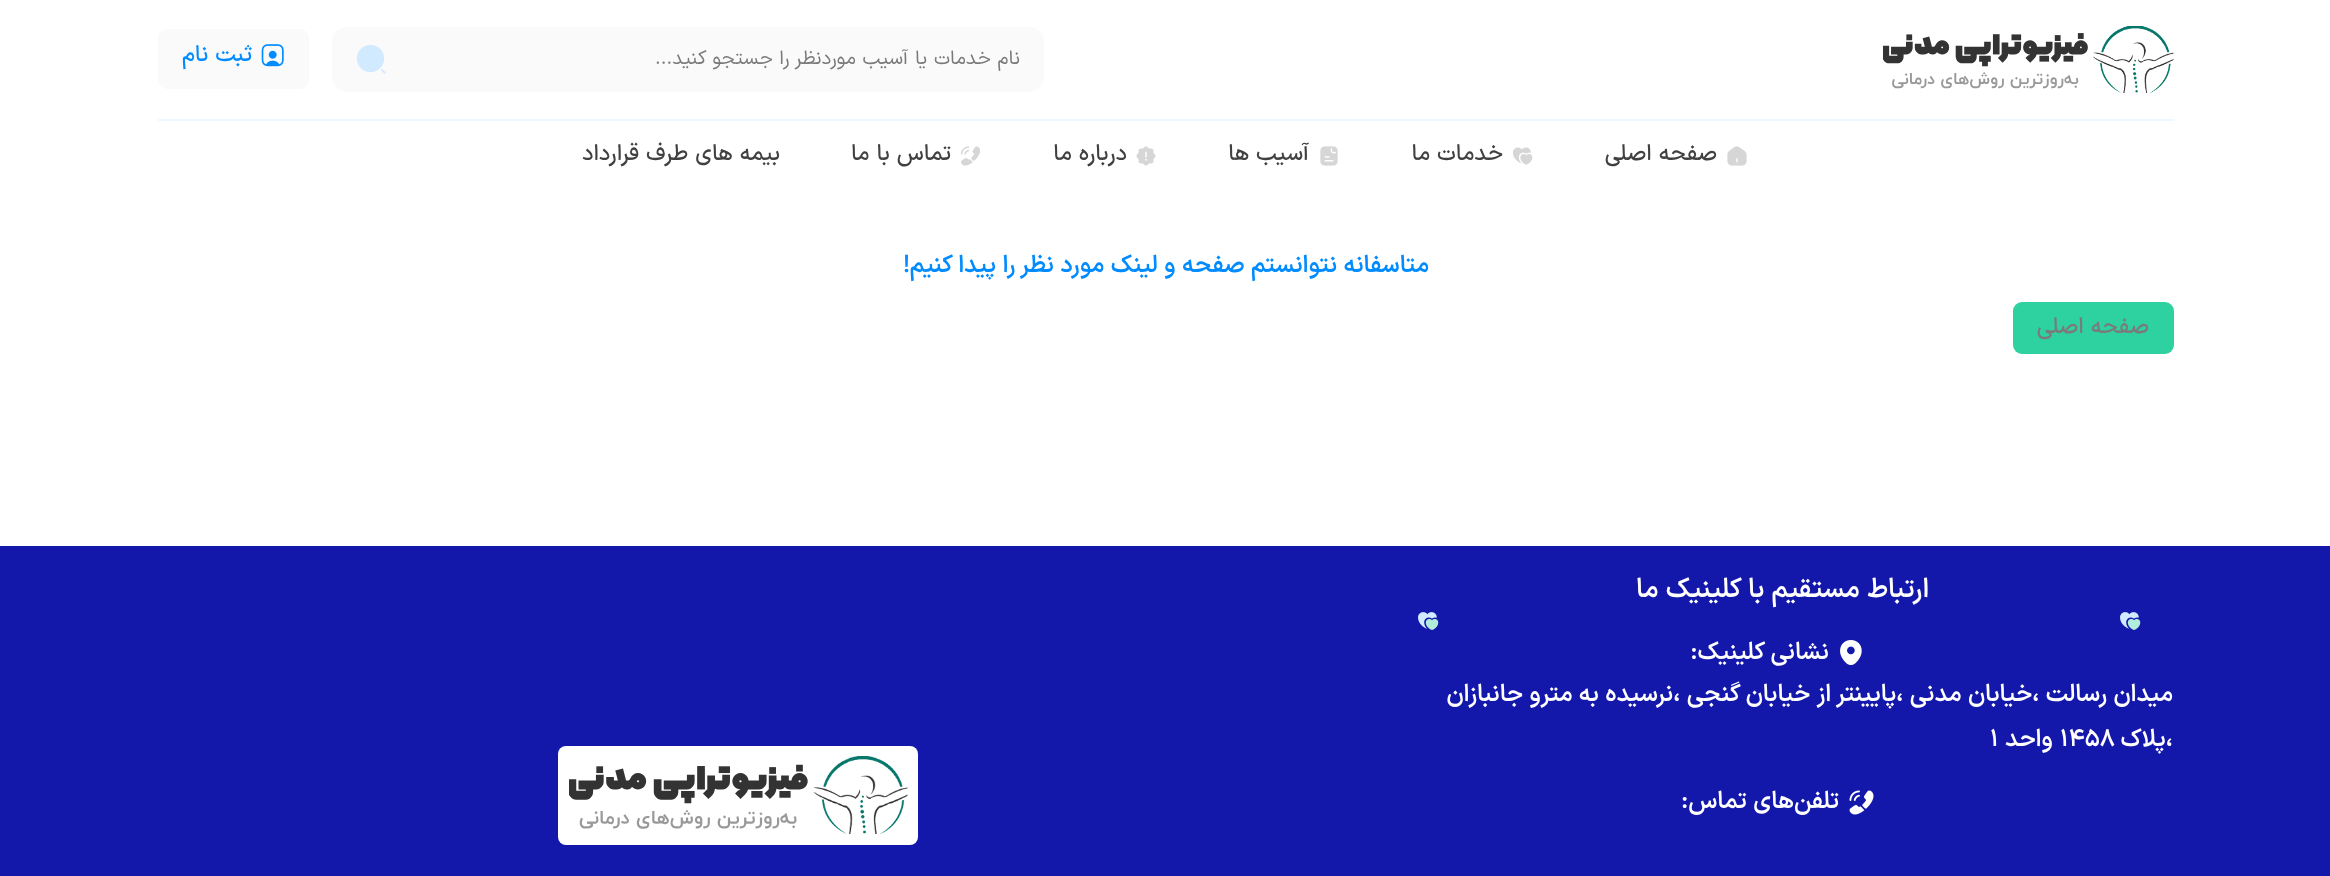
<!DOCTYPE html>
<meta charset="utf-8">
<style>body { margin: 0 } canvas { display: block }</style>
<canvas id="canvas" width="2330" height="876"></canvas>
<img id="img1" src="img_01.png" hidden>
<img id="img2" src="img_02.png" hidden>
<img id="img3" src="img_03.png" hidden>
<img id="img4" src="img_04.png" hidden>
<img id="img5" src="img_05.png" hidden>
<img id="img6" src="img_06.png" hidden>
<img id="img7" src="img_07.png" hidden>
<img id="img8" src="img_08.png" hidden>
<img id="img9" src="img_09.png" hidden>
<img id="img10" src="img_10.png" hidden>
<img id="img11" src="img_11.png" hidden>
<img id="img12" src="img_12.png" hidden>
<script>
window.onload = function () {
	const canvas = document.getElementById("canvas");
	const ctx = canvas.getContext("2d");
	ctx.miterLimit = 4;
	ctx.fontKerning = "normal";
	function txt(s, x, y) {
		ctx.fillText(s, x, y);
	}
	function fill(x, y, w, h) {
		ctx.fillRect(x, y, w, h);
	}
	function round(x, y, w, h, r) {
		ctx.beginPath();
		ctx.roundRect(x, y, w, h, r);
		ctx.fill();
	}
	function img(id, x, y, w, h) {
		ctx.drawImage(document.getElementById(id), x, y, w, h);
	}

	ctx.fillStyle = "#FFFFFF";
	fill(0, 0, 2330, 876);
	ctx.fillStyle = "#F0F8FF";
	fill(158, 119, 2016, 2);
	img("img1", 1883, 26, 291, 67);
	ctx.fillStyle = "#FAFAFA";
	round(332, 27, 712, 65, 15);
	img("img2", 356, 44, 30, 30);
	round(158, 29, 151, 60, 9);
	img("img3", 261, 44, 23, 23);
	img("img4", 1727, 146, 20, 20);
	img("img5", 1513, 147, 20, 18);
	img("img6", 1320, 146, 18, 20);
	img("img7", 1136, 146, 20, 20);
	img("img8", 961, 146, 19, 20);
	ctx.fillStyle = "#2ED1A0";
	round(2013, 302, 161, 52, 9);
	ctx.fillStyle = "#1418AA";
	fill(1367, 546, 963, 330);
	img("img9", 2120, 612, 21, 18);
	img("img9", 1418, 612, 21, 18);
	img("img10", 1840, 640, 22, 25);
	img("img11", 1849, 790, 25, 25);
	fill(0, 546, 1367, 330);
	ctx.fillStyle = "#FFFFFF";
	round(558, 746, 360, 99, 8);
	img("img12", 569, 756, 339, 78);
	ctx.direction = "rtl";
	ctx.font = "19.5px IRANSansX";
	ctx.fillStyle = "#7A7A7A";
	txt("نام خدمات یا آسیب موردنظر را جستجو کنید...", 1020, 64);
	ctx.font = "500 22.5px IRANSansX";
	ctx.fillStyle = "#008BFF";
	txt("ثبت نام", 252, 61);
	ctx.fillStyle = "#404040";
	txt("صفحه اصلی", 1717, 160);
	txt("خدمات ما", 1503, 160);
	txt("آسیب ها", 1309, 160);
	txt("درباره ما", 1127, 160);
	txt("تماس با ما", 951, 160);
	txt("بیمه های طرف قرارداد", 780, 160);
	ctx.font = "600 24px IRANSansX";
	ctx.fillStyle = "#008BFF";
	txt("متاسفانه نتوانستم صفحه و لینک مورد نظر را پیدا کنیم!", 1429, 272);
	ctx.font = "500 22.5px IRANSansX";
	ctx.fillStyle = "#7A7A7A";
	txt("صفحه اصلی", 2149, 333);
	ctx.font = "600 27px IRANSansX";
	ctx.fillStyle = "#FFFFFF";
	txt("ارتباط مستقیم با کلینیک ما", 1929, 597);
	ctx.font = "600 24px IRANSansX";
	txt("نشانی کلینیک:", 1829, 659);
	txt("میدان رسالت ،خیابان مدنی ،پایینتر از خیابان گنجی ،نرسیده به مترو جانبازان", 2173, 701);
	txt("،پلاک", 2173, 746);
	ctx.direction = "ltr";
	txt("۱۴۵۸", 2060, 746);
	ctx.direction = "rtl";
	txt("واحد", 2053, 746);
	ctx.direction = "ltr";
	txt("۱", 1990, 746);
	ctx.direction = "rtl";
	txt("تلفن‌های تماس:", 1839, 808);
};
</script>
